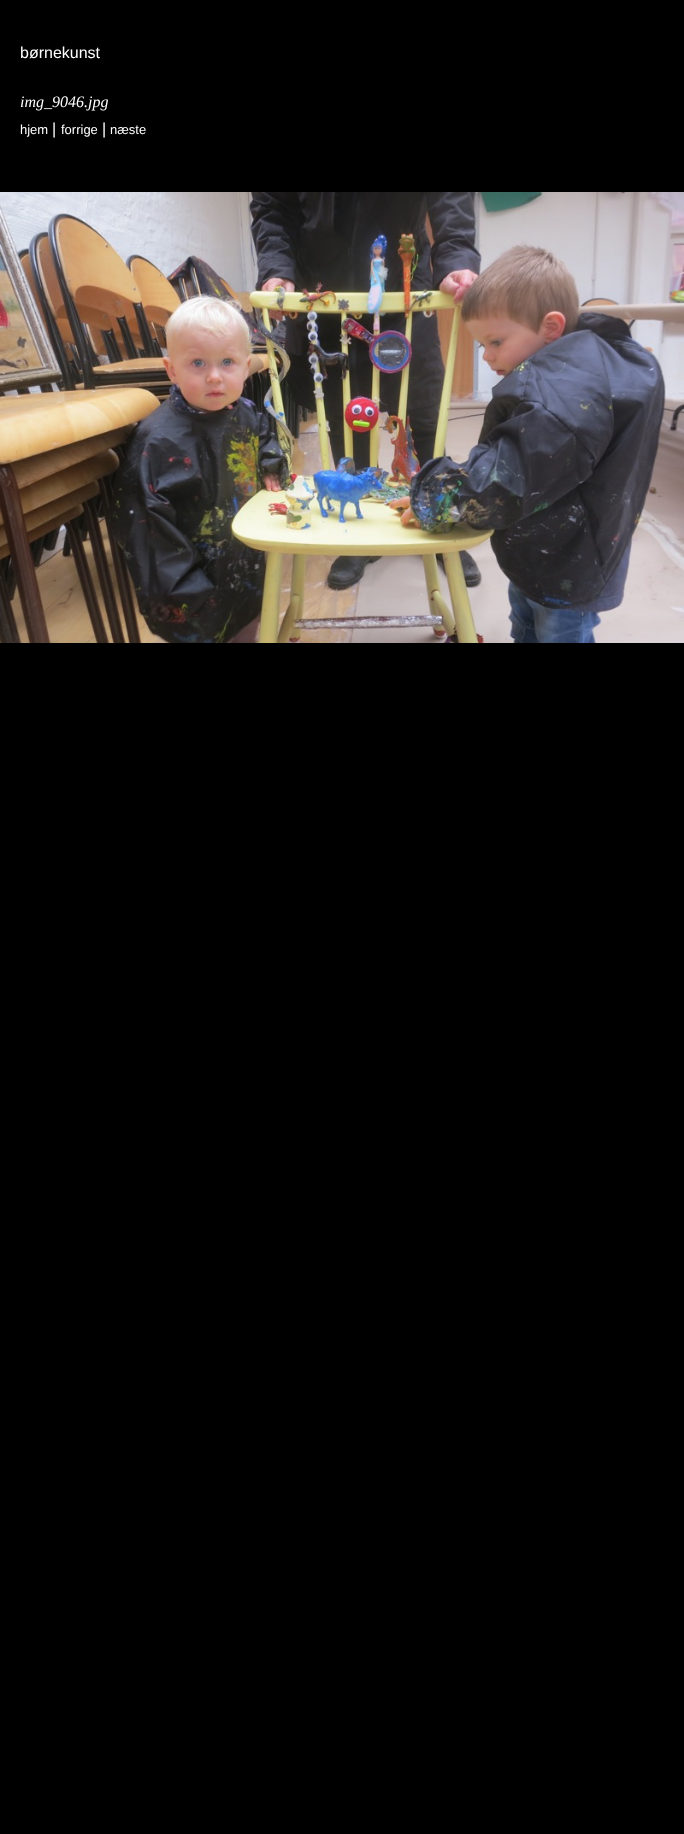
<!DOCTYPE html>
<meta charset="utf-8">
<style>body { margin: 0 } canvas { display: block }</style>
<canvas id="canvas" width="684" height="1834"></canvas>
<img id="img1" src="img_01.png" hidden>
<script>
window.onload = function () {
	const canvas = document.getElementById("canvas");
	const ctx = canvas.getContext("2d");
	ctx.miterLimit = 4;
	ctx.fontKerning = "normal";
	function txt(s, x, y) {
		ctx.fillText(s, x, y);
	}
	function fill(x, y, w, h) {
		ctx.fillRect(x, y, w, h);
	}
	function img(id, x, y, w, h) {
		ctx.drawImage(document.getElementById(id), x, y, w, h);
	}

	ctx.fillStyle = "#000000";
	fill(0, 0, 684, 1834);
	img("img1", 0, 192, 684, 451);
	ctx.font = "16px Liberation Sans";
	ctx.fillStyle = "#FFFFFF";
	txt("børnekunst", 20, 58);
	ctx.font = "italic 16px Liberation Serif";
	txt("img_9046.jpg", 20, 107);
	ctx.font = "13px Liberation Sans";
	txt("hjem", 20, 134);
	ctx.font = "16px Liberation Sans";
	txt("|", 52, 134);
	ctx.font = "13px Liberation Sans";
	txt("forrige", 61, 134);
	ctx.font = "16px Liberation Sans";
	txt("|", 102, 134);
	ctx.font = "13px Liberation Sans";
	txt("næste", 110, 134);
};
</script>
